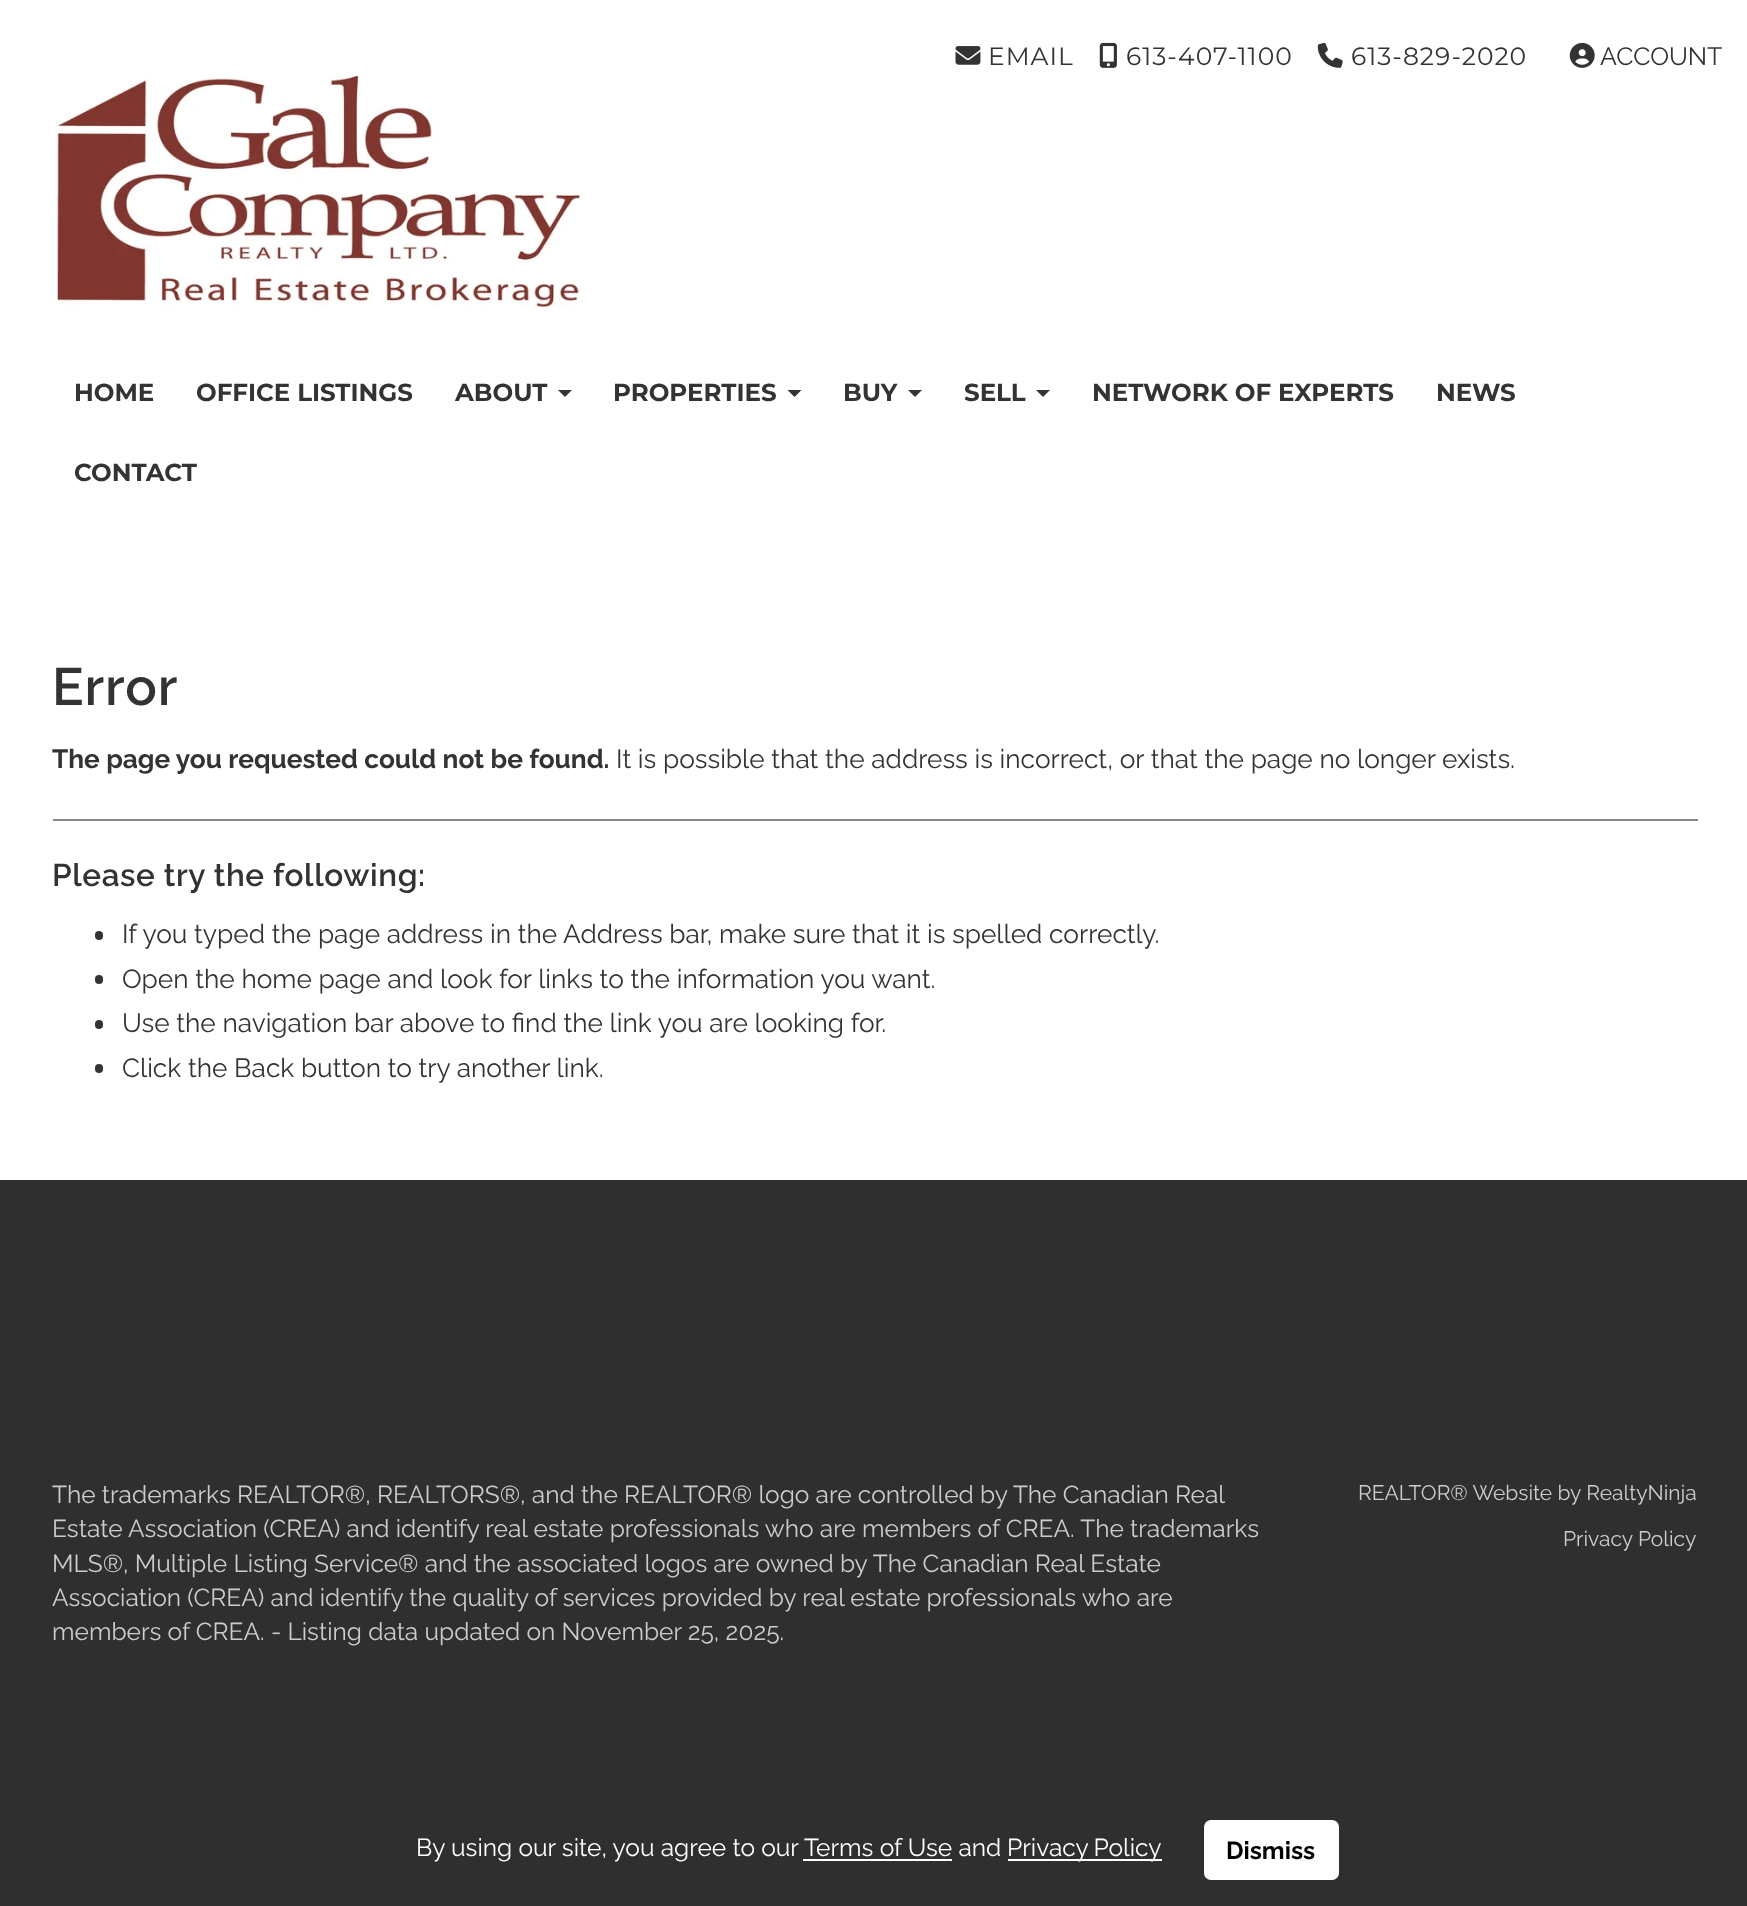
<!DOCTYPE html>
<meta charset="utf-8">
<style>body { margin: 0 } canvas { display: block }</style>
<canvas id="canvas" width="1747" height="1906"></canvas>
<img id="img1" src="img_01.png" hidden>
<img id="img2" src="img_02.png" hidden>
<img id="img3" src="img_03.png" hidden>
<img id="img4" src="img_04.png" hidden>
<img id="img5" src="img_05.png" hidden>
<script>
window.onload = function () {
	const canvas = document.getElementById("canvas");
	const ctx = canvas.getContext("2d");
	ctx.miterLimit = 4;
	ctx.fontKerning = "normal";
	function txt(s, x, y) {
		ctx.fillText(s, x, y);
	}
	function fill(x, y, w, h) {
		ctx.fillRect(x, y, w, h);
	}
	function round(x, y, w, h, r) {
		ctx.beginPath();
		ctx.roundRect(x, y, w, h, r);
		ctx.fill();
	}
	function img(id, x, y, w, h) {
		ctx.drawImage(document.getElementById(id), x, y, w, h);
	}

	ctx.fillStyle = "#FFFFFF";
	fill(0, 0, 1747, 1906);
	img("img1", 955, 46, 26, 19);
	img("img2", 1099, 42, 18, 26);
	img("img3", 1317, 42, 26, 26);
	img("img4", 1569, 42, 26, 26);
	img("img5", 57, 75, 526, 233);
	ctx.fillStyle = "#333333";
	ctx.beginPath();
	ctx.moveTo(558, 390);
	ctx.lineTo(572, 390);
	ctx.lineTo(565, 397);
	ctx.closePath();
	ctx.fill();
	ctx.beginPath();
	ctx.moveTo(787.5, 390);
	ctx.lineTo(801.5, 390);
	ctx.lineTo(794.5, 397);
	ctx.closePath();
	ctx.fill();
	ctx.beginPath();
	ctx.moveTo(908, 390);
	ctx.lineTo(922, 390);
	ctx.lineTo(915, 397);
	ctx.closePath();
	ctx.fill();
	ctx.beginPath();
	ctx.moveTo(1036, 390);
	ctx.lineTo(1050, 390);
	ctx.lineTo(1043, 397);
	ctx.closePath();
	ctx.fill();
	ctx.fillStyle = "#888888";
	fill(53, 819, 1645, 2);
	ctx.fillStyle = "#333333";
	round(95, 931, 8, 9, 4);
	round(95, 975, 8, 9, 4);
	round(95, 1020, 8, 9, 4);
	round(95, 1064, 8, 9, 4);
	ctx.fillStyle = "#2F2F2F";
	fill(0, 1180, 1747, 726);
	ctx.fillStyle = "#FFFFFF";
	fill(1008, 1859, 154, 2);
	round(1204, 1820, 135, 60, 7);
	fill(803, 1859, 149, 2);
	ctx.letterSpacing = "1px";
	ctx.font = "25px Montserrat";
	ctx.fillStyle = "#333333";
	txt("EMAIL", 988, 65);
	txt("613-407-1100", 1126, 65);
	txt("613-829-2020", 1351, 65);
	ctx.letterSpacing = "0px";
	ctx.font = "25px Raleway";
	txt("ACCOUNT", 1600, 65);
	ctx.font = "bold 24.5px Montserrat";
	txt("HOME", 74, 401);
	txt("OFFICE LISTINGS", 196, 401);
	txt("ABOUT", 455, 401);
	txt("PROPERTIES", 613, 401);
	txt("BUY", 843, 401);
	txt("SELL", 964, 401);
	txt("NETWORK OF EXPERTS", 1092, 401);
	txt("NEWS", 1436, 401);
	txt("CONTACT", 74, 481);
	ctx.letterSpacing = "1px";
	ctx.font = "600 52.5px Raleway";
	txt("Error", 52, 705);
	ctx.letterSpacing = "0px";
	ctx.font = "bold 26.25px Raleway";
	txt("The page you requested could not be found.", 52, 768);
	ctx.font = "26.25px Raleway";
	txt("It is possible that the address is incorrect, or that the page no longer exists.", 616, 768);
	ctx.letterSpacing = "0.6px";
	ctx.font = "600 31.5px Raleway";
	txt("Please try the following:", 52, 886);
	ctx.letterSpacing = "0px";
	ctx.font = "26.25px Raleway";
	txt("If you typed the page address in the Address bar, make sure that it is spelled correctly.", 122, 943);
	txt("Open the home page and look for links to the information you want.", 122, 988);
	txt("Use the navigation bar above to find the link you are looking for.", 122, 1032);
	txt("Click the Back button to try another link.", 122, 1077);
	ctx.font = "24.5px Raleway";
	ctx.fillStyle = "#CCCCCC";
	txt("The trademarks REALTOR®, REALTORS®, and the REALTOR® logo are controlled by The Canadian Real", 52, 1503);
	txt("Estate Association (CREA) and identify real estate professionals who are members of CREA. The trademarks", 52, 1537);
	txt("MLS®, Multiple Listing Service® and the associated logos are owned by The Canadian Real Estate", 52, 1572);
	txt("Association (CREA) and identify the quality of services provided by real estate professionals who are", 52, 1606);
	txt("members of CREA. - Listing data updated on November 25, 2025.", 52, 1640);
	ctx.font = "21px Raleway";
	txt("REALTOR® Website by RealtyNinja", 1358, 1500);
	txt("Privacy Policy", 1563, 1546);
	ctx.font = "24.5px Raleway";
	ctx.fillStyle = "#FFFFFF";
	txt("By using our site, you agree to our Terms of Use and", 416, 1856);
	ctx.wordSpacing = "-1px";
	txt("Privacy Policy", 1007, 1856);
	ctx.wordSpacing = "0px";
	ctx.font = "bold 24.5px Raleway";
	ctx.fillStyle = "#000000";
	txt("Dismiss", 1226, 1859);
};
</script>
